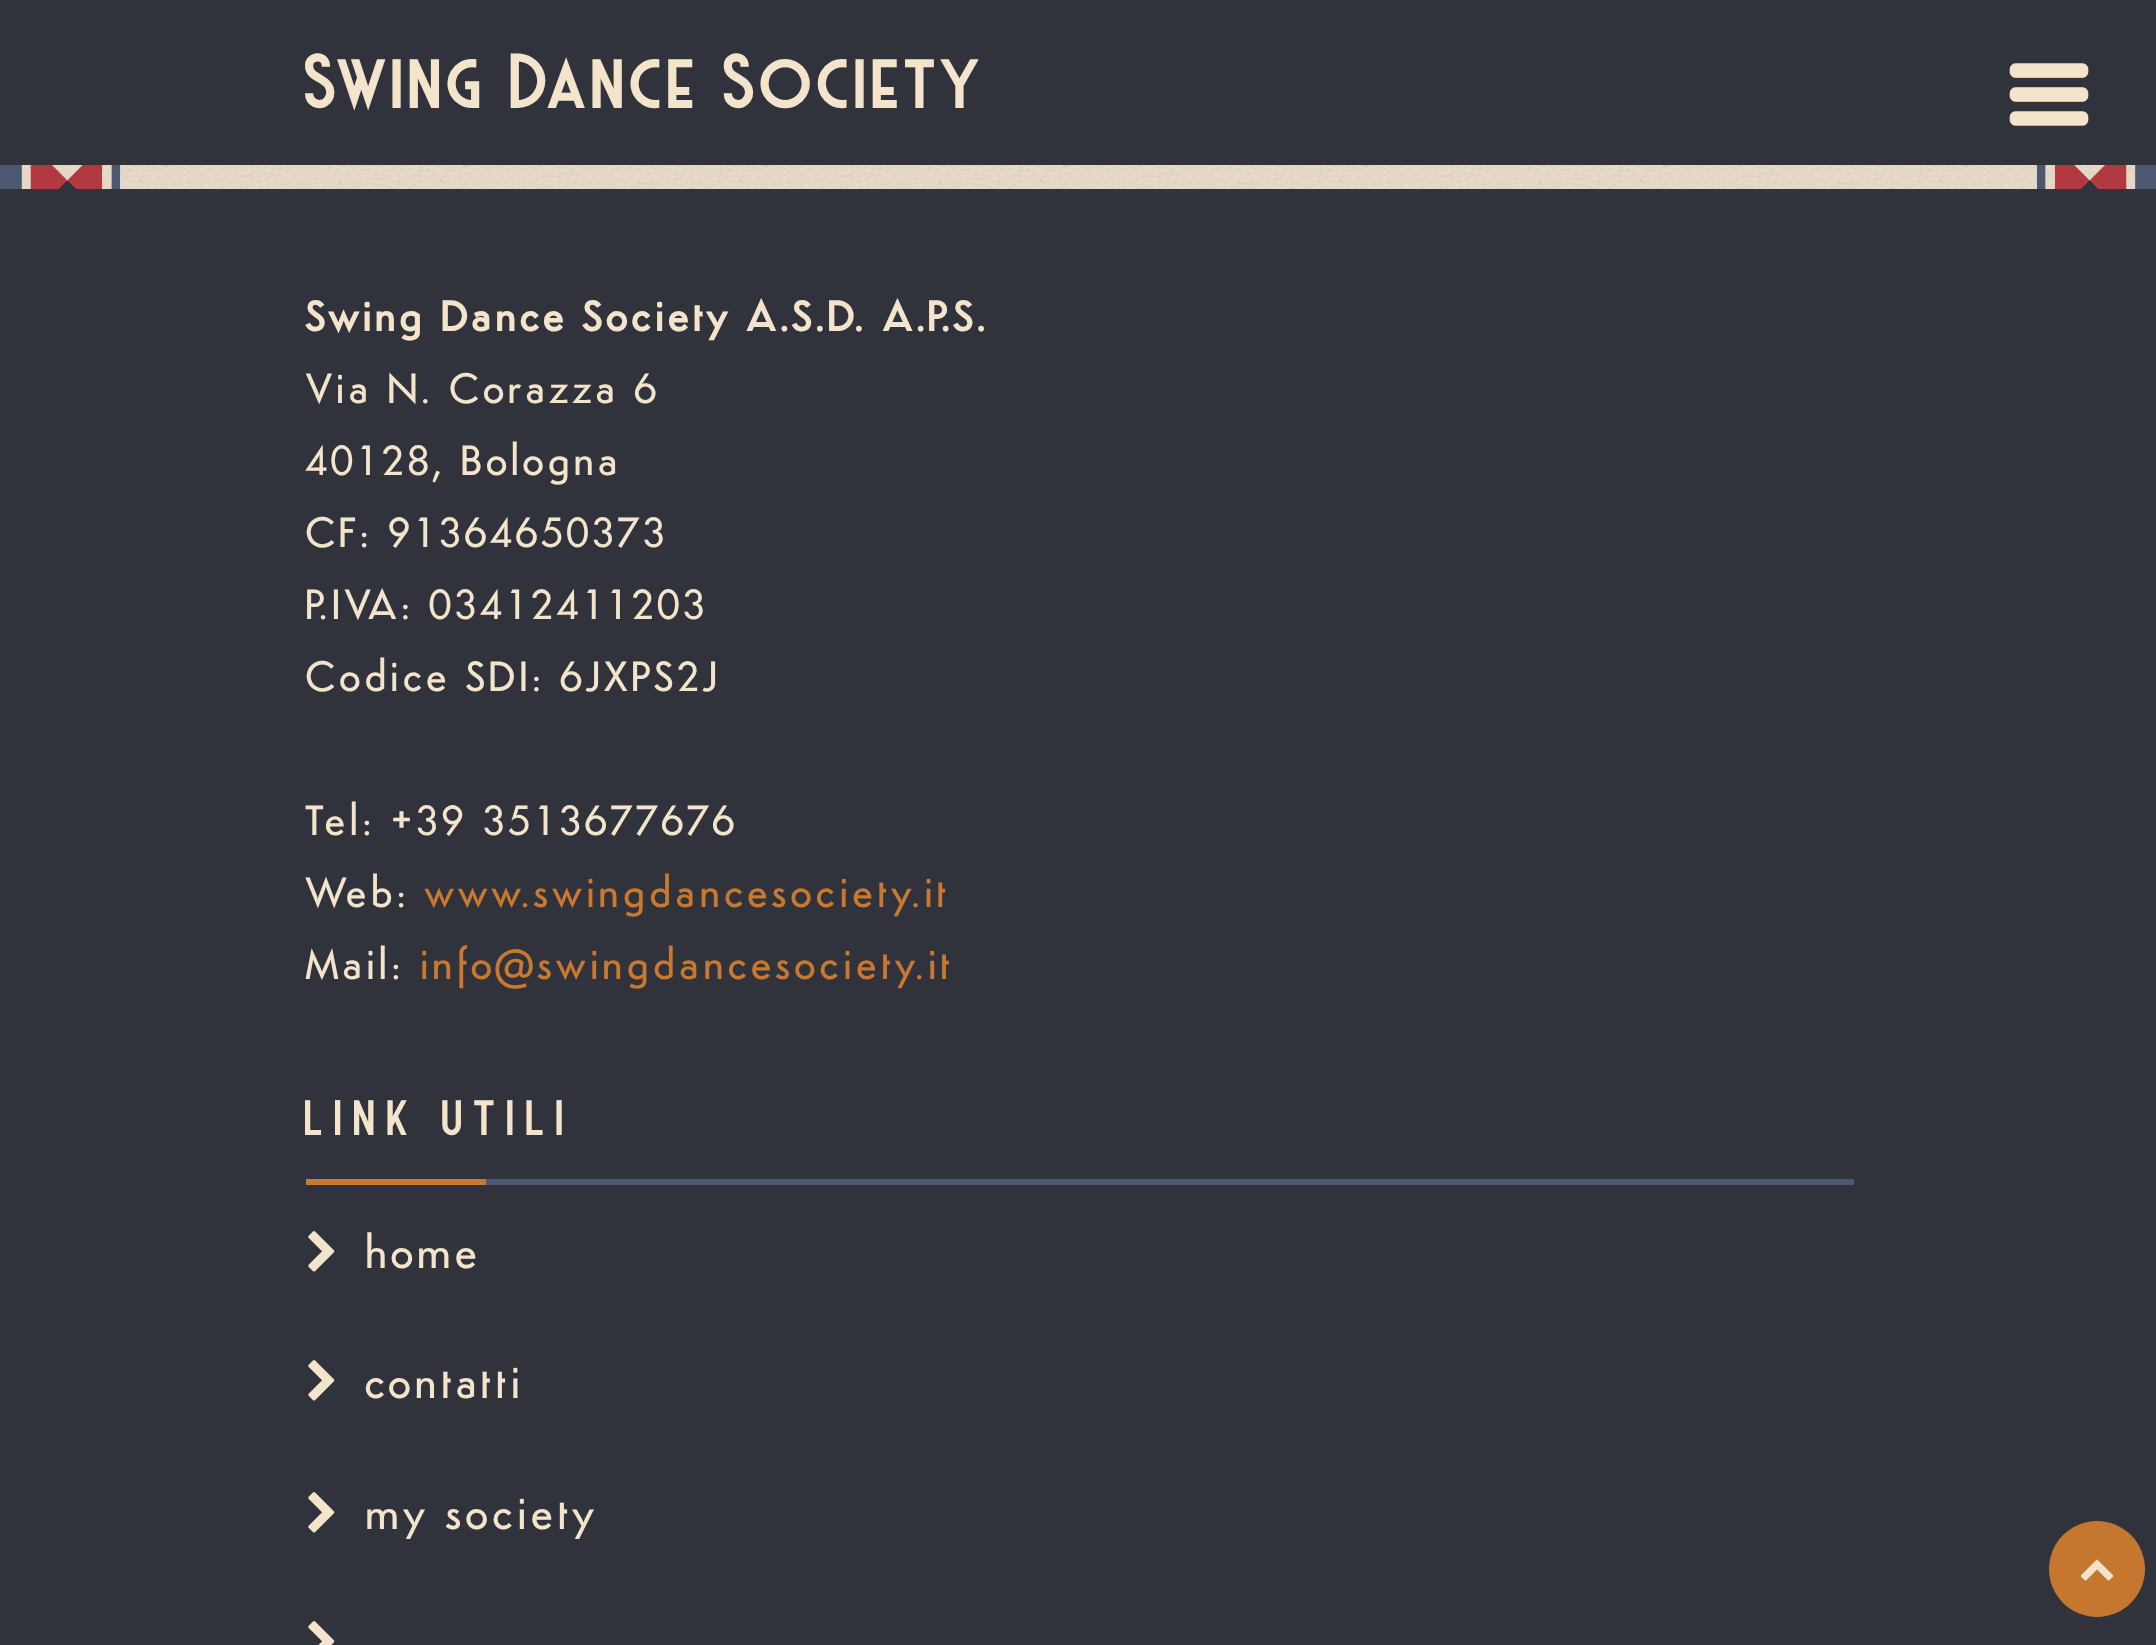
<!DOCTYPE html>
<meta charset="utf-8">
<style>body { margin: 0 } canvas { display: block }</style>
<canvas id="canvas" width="2156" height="1645"></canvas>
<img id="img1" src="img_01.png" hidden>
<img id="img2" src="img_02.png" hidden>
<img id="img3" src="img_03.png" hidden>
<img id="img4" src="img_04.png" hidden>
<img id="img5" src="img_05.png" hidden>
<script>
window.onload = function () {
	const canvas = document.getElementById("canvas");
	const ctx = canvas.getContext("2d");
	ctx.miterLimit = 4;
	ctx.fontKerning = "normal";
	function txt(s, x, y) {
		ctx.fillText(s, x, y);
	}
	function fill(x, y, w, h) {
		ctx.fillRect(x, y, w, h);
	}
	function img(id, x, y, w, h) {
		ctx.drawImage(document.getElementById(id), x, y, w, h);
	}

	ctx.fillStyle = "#30333C";
	fill(0, 0, 2156, 1645);
	img("img1", 2009, 63, 80, 63);
	ctx.fillStyle = "#F4E4CC";
	fill(21, 165, 2115, 24);
	img("img2", 0, 165, 2156, 24);
	ctx.fillStyle = "#C8782F";
	fill(306, 1179, 180, 6);
	ctx.fillStyle = "#4C586F";
	fill(486, 1179, 1368, 6);
	img("img3", 308, 1231, 27, 41);
	img("img3", 308, 1360, 27, 41);
	img("img3", 308, 1492, 27, 41);
	img("img4", 308, 1621, 27, 24);
	ctx.fillStyle = "#C5772F";
	ctx.beginPath();
	ctx.arc(2097, 1569, 48, 0, Math.PI * 2);
	ctx.fill();
	img("img5", 2080, 1559, 34, 22);
	ctx.letterSpacing = "6px";
	ctx.font = "bold 75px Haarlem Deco";
	ctx.fillStyle = "#F4E4CC";
	txt("Swing Dance Society", 305, 108);
	ctx.letterSpacing = "3px";
	ctx.font = "bold 42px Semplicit";
	txt("Swing Dance Society A.S.D. A.P.S.", 305, 331);
	ctx.font = "500 42px Semplicit";
	txt("Via N. Corazza 6", 305, 403);
	txt("40128, Bologna", 305, 475);
	txt("CF: 91364650373", 305, 547);
	txt("P.IVA: 03412411203", 305, 619);
	txt("Codice SDI: 6JXPS2J", 305, 691);
	txt("Tel: +39 3513677676", 305, 835);
	txt("Web:", 305, 907);
	ctx.fillStyle = "#C8782F";
	txt("www.swingdancesociety.it", 424, 907);
	ctx.fillStyle = "#F4E4CC";
	txt("Mail:", 305, 979);
	ctx.fillStyle = "#C8782F";
	txt("info@swingdancesociety.it", 419, 979);
	ctx.letterSpacing = "12px";
	ctx.font = "bold 48px Haarlem Deco";
	ctx.fillStyle = "#F4E4CC";
	txt("LINK UTILI", 305, 1135);
	ctx.letterSpacing = "3px";
	ctx.font = "500 45px Semplicit";
	txt("home", 364, 1268);
	txt("contatti", 364, 1398);
	txt("my society", 364, 1529);
};
</script>
